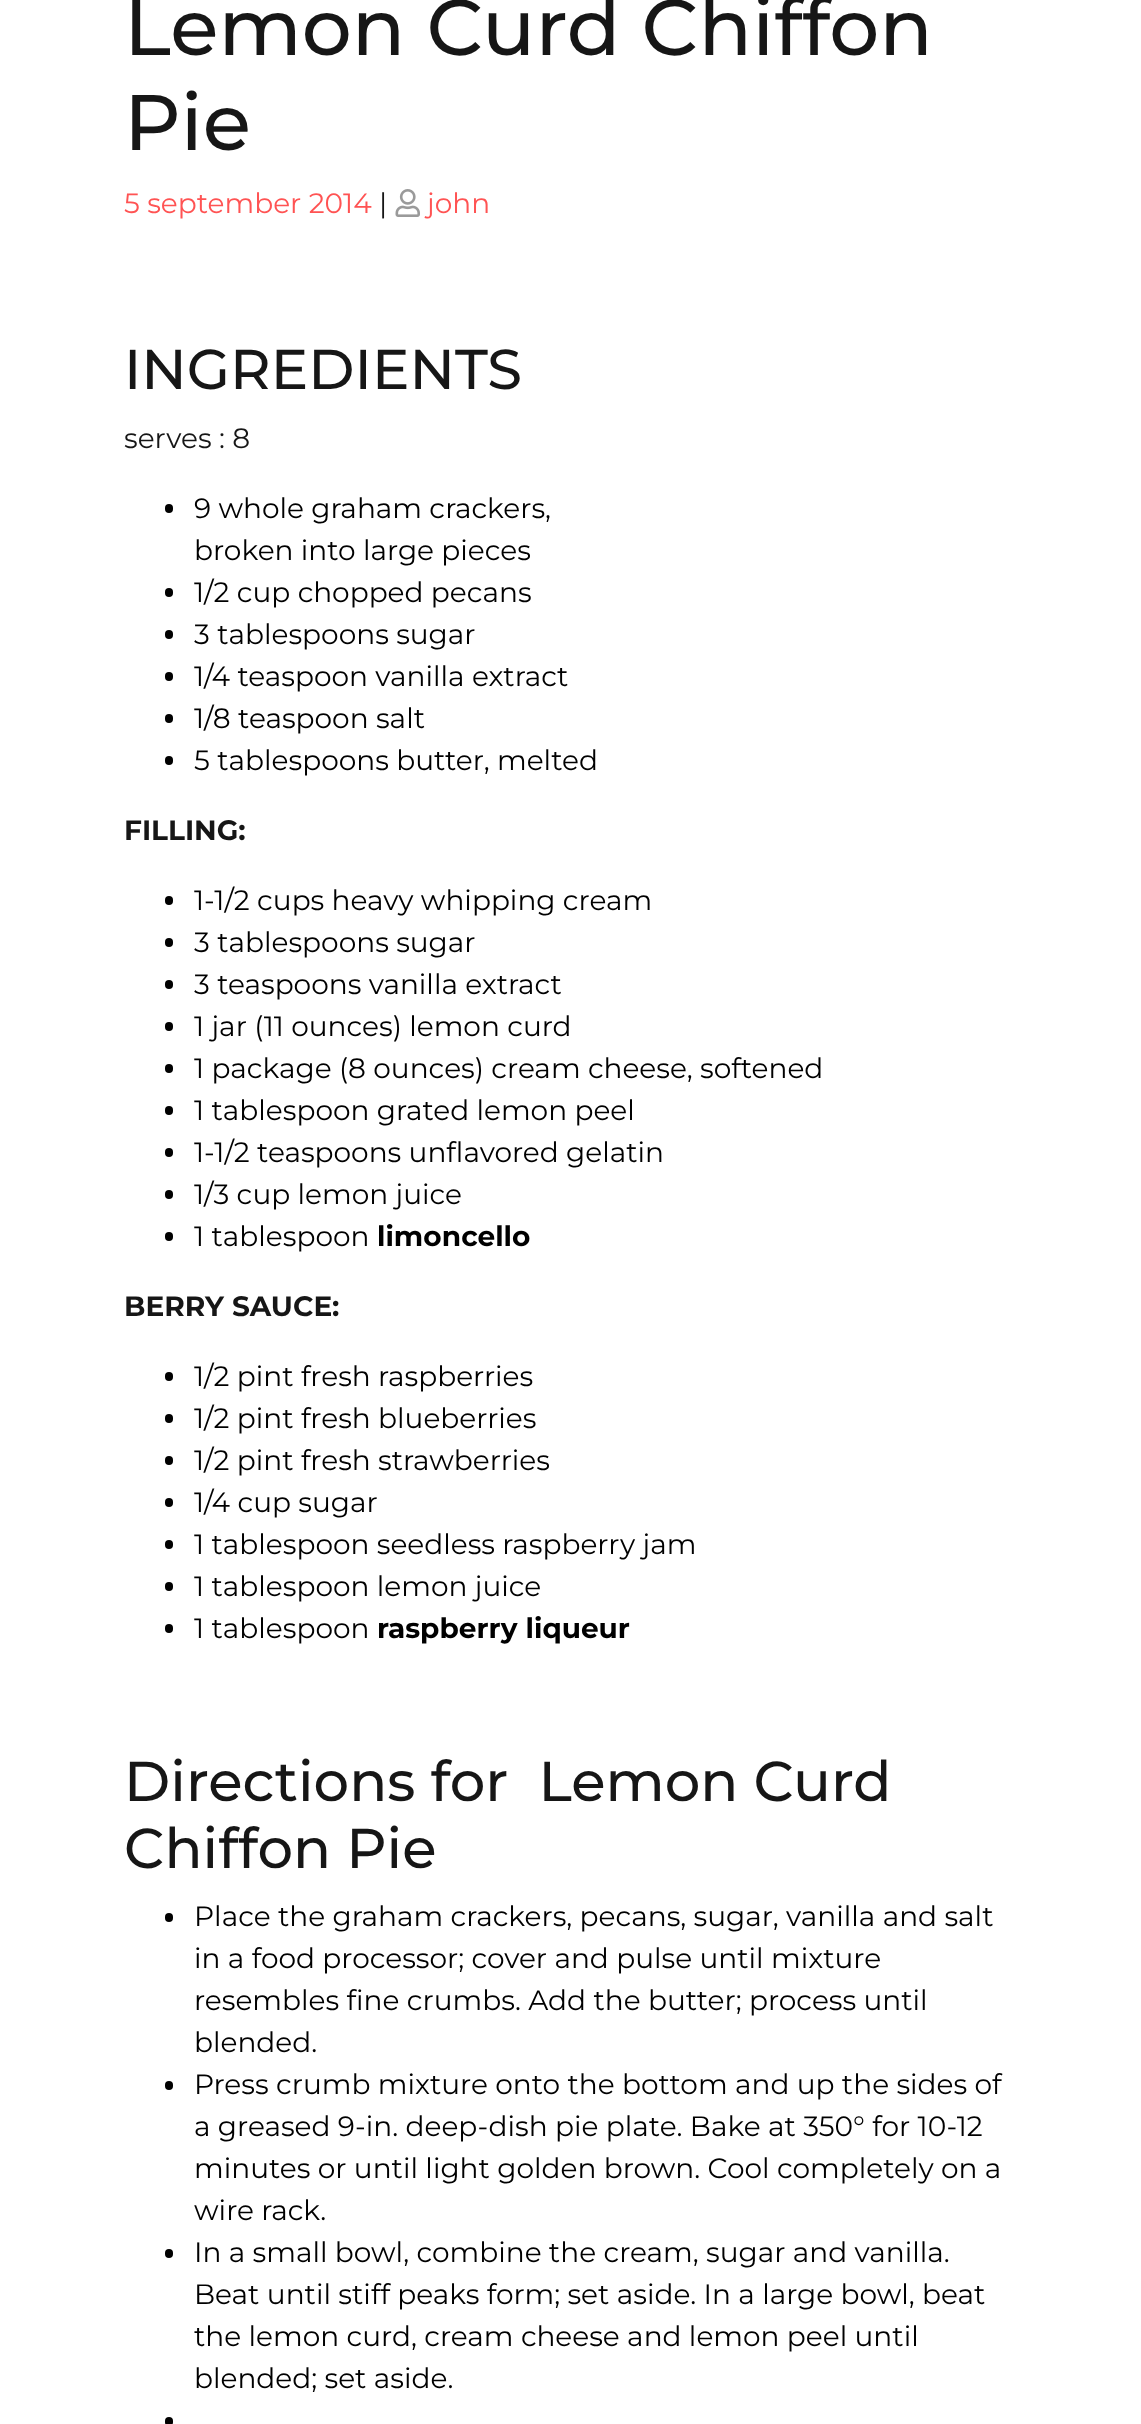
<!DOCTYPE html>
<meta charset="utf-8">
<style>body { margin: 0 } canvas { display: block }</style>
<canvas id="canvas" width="1141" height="2424"></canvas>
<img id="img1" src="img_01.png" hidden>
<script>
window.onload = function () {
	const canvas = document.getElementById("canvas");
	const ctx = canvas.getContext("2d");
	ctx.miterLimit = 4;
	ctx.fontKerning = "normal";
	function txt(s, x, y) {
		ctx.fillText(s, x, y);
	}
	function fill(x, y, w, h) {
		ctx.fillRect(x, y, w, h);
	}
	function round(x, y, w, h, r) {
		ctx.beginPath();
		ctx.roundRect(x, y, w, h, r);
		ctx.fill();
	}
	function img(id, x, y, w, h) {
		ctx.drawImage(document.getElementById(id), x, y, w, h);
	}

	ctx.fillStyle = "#FFFFFF";
	fill(0, 0, 1141, 2424);
	img("img1", 395, 189, 25, 28);
	ctx.fillStyle = "#000000";
	round(165, 504, 8, 9, 4);
	round(165, 588, 8, 9, 4);
	round(165, 630, 8, 9, 4);
	round(165, 672, 8, 9, 4);
	round(165, 714, 8, 9, 4);
	round(165, 756, 8, 9, 4);
	round(165, 896, 8, 9, 4);
	round(165, 938, 8, 9, 4);
	round(165, 980, 8, 9, 4);
	round(165, 1022, 8, 9, 4);
	round(165, 1064, 8, 9, 4);
	round(165, 1106, 8, 9, 4);
	round(165, 1148, 8, 9, 4);
	round(165, 1190, 8, 9, 4);
	round(165, 1232, 8, 9, 4);
	round(165, 1372, 8, 9, 4);
	round(165, 1414, 8, 9, 4);
	round(165, 1456, 8, 9, 4);
	round(165, 1498, 8, 9, 4);
	round(165, 1540, 8, 9, 4);
	round(165, 1582, 8, 9, 4);
	round(165, 1624, 8, 9, 4);
	round(165, 1913, 8, 9, 4);
	round(165, 2081, 8, 9, 4);
	round(165, 2249, 8, 9, 4);
	round(165, 2417, 8, 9, 4);
	ctx.font = "500 78.75px Montserrat";
	ctx.fillStyle = "#161616";
	txt("Lemon Curd Chiffon", 124, 55);
	txt("Pie", 124, 150);
	ctx.font = "28px Montserrat";
	ctx.fillStyle = "#FF5353";
	txt("5 september 2014", 124, 213);
	ctx.fillStyle = "#161616";
	txt("|", 379, 213);
	ctx.fillStyle = "#FF5353";
	txt("john", 427, 213);
	ctx.font = "500 56px Montserrat";
	ctx.fillStyle = "#161616";
	txt("INGREDIENTS", 124, 389);
	ctx.font = "28px Montserrat";
	txt("serves : 8", 124, 448);
	ctx.fillStyle = "#000000";
	txt("9 whole graham crackers,", 194, 518);
	txt("broken into large pieces", 194, 560);
	txt("1/2 cup chopped pecans", 194, 602);
	txt("3 tablespoons sugar", 194, 644);
	txt("1/4 teaspoon vanilla extract", 194, 686);
	txt("1/8 teaspoon salt", 194, 728);
	txt("5 tablespoons butter, melted", 194, 770);
	ctx.font = "bold 28px Montserrat";
	ctx.fillStyle = "#161616";
	txt("FILLING:", 124, 840);
	ctx.font = "28px Montserrat";
	ctx.fillStyle = "#000000";
	txt("1-1/2 cups heavy whipping cream", 194, 910);
	txt("3 tablespoons sugar", 194, 952);
	txt("3 teaspoons vanilla extract", 194, 994);
	txt("1 jar (11 ounces) lemon curd", 194, 1036);
	txt("1 package (8 ounces) cream cheese, softened", 194, 1078);
	txt("1 tablespoon grated lemon peel", 194, 1120);
	txt("1-1/2 teaspoons unflavored gelatin", 194, 1162);
	txt("1/3 cup lemon juice", 194, 1204);
	txt("1 tablespoon", 194, 1246);
	ctx.font = "bold 28px Montserrat";
	txt("limoncello", 377, 1246);
	ctx.fillStyle = "#161616";
	txt("BERRY SAUCE:", 124, 1316);
	ctx.font = "28px Montserrat";
	ctx.fillStyle = "#000000";
	txt("1/2 pint fresh raspberries", 194, 1386);
	txt("1/2 pint fresh blueberries", 194, 1428);
	txt("1/2 pint fresh strawberries", 194, 1470);
	txt("1/4 cup sugar", 194, 1512);
	txt("1 tablespoon seedless raspberry jam", 194, 1554);
	txt("1 tablespoon lemon juice", 194, 1596);
	txt("1 tablespoon", 194, 1638);
	ctx.font = "bold 28px Montserrat";
	txt("raspberry liqueur", 377, 1638);
	ctx.font = "500 56px Montserrat";
	ctx.fillStyle = "#161616";
	txt("Directions for  Lemon Curd", 124, 1801);
	txt("Chiffon Pie", 124, 1868);
	ctx.font = "28px Montserrat";
	ctx.fillStyle = "#000000";
	txt("Place the graham crackers, pecans, sugar, vanilla and salt", 194, 1926);
	txt("in a food processor; cover and pulse until mixture", 194, 1968);
	txt("resembles fine crumbs. Add the butter; process until", 194, 2010);
	txt("blended.", 194, 2052);
	txt("Press crumb mixture onto the bottom and up the sides of", 194, 2094);
	txt("a greased 9-in. deep-dish pie plate. Bake at 350° for 10-12", 194, 2136);
	txt("minutes or until light golden brown. Cool completely on a", 194, 2178);
	txt("wire rack.", 194, 2220);
	txt("In a small bowl, combine the cream, sugar and vanilla.", 194, 2262);
	txt("Beat until stiff peaks form; set aside. In a large bowl, beat", 194, 2304);
	txt("the lemon curd, cream cheese and lemon peel until", 194, 2346);
	txt("blended; set aside.", 194, 2388);
};
</script>
